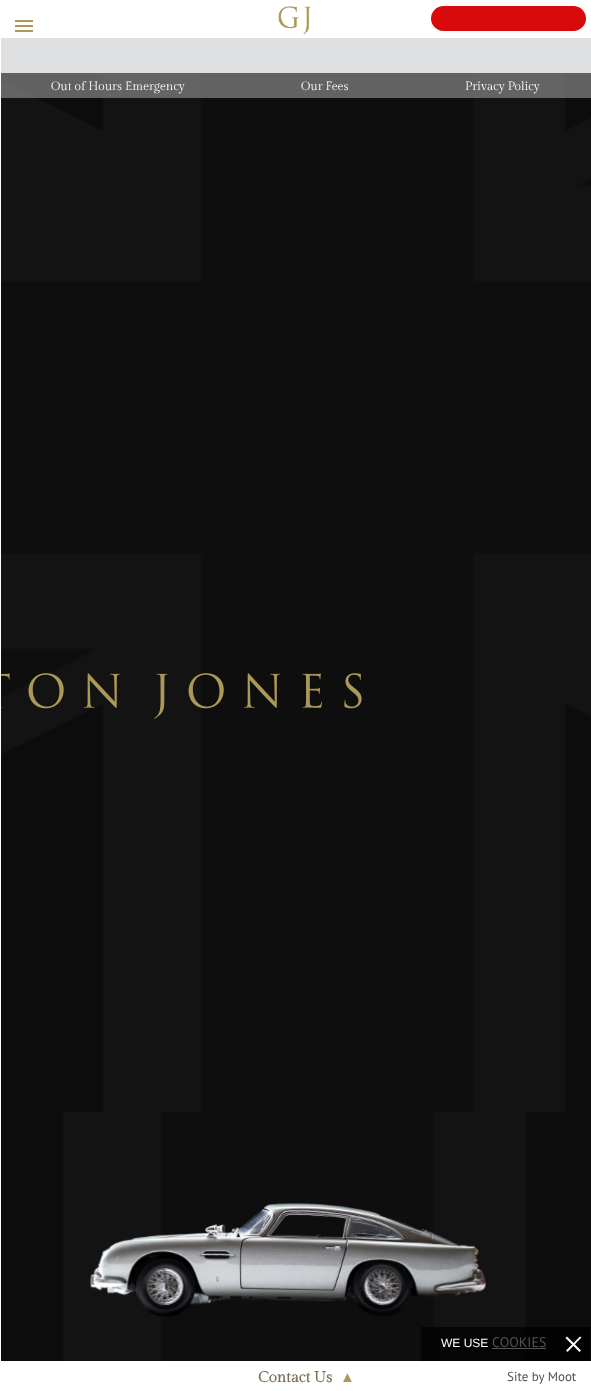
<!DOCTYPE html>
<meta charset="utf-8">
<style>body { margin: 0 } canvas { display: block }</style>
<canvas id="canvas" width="591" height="1391"></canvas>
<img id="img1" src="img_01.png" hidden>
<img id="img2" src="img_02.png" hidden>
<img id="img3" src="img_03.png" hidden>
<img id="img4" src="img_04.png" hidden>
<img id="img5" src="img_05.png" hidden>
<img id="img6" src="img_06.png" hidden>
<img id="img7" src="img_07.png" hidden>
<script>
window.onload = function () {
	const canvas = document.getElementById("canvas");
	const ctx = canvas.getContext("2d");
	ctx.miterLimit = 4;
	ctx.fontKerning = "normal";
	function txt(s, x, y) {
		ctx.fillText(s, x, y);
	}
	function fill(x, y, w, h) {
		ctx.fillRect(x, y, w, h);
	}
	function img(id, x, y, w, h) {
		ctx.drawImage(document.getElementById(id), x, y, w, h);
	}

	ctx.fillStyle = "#FFFFFF";
	fill(0, 0, 591, 1391);
	img("img1", 1, 1112, 590, 249);
	ctx.fillStyle = "#AC9857";
	fill(15, 20, 18, 2);
	fill(15, 25, 18, 2);
	fill(15, 30, 18, 2);
	ctx.fillStyle = "#D90A0B";
	ctx.beginPath();
	ctx.roundRect(432, 7, 153, 23, 11.5);
	ctx.fill();
	ctx.strokeStyle = "#D90A0B";
	ctx.lineWidth = 2;
	ctx.stroke();
	ctx.fillStyle = "#DFE0E2";
	fill(1, 38, 590, 35);
	img("img2", 278, 6, 33, 28);
	img("img3", 1, 73, 590, 1039);
	img("img4", 1, 673, 361, 46);
	img("img5", 90, 1203, 396, 114);
	img("img6", 146, 1267, 38, 39);
	img("img7", 363, 1267, 40, 39);
	ctx.fillStyle = "rgba(181, 181, 181, 0.5)";
	fill(1, 73, 590, 25);
	ctx.fillStyle = "rgba(0, 0, 0, 0.7)";
	fill(421, 1327, 135, 34);
	ctx.fillStyle = "#545454";
	fill(492, 1348, 54, 1);
	ctx.fillStyle = "#020202";
	fill(556, 1327, 34, 34);
	ctx.fillStyle = "#FFFFFF";
	ctx.beginPath();
	ctx.moveTo(580, 1336.5);
	ctx.lineTo(581.5, 1337.5);
	ctx.lineTo(567.5, 1352);
	ctx.lineTo(566, 1350.5);
	ctx.closePath();
	ctx.fill();
	ctx.beginPath();
	ctx.moveTo(581, 1350.5);
	ctx.lineTo(579.5, 1352);
	ctx.lineTo(565.5, 1338);
	ctx.lineTo(567, 1336.5);
	ctx.closePath();
	ctx.fill();
	ctx.font = "12px Gilda Display";
	txt("Out of Hours Emergency", 51, 90);
	txt("Our Fees", 301, 90);
	txt("Privacy Policy", 465, 90);
	ctx.font = "12px Liberation Sans";
	txt("WE USE", 441, 1347);
	ctx.font = "14px PT Sans";
	ctx.fillStyle = "#545454";
	txt("COOKIES", 492, 1347);
	ctx.font = "bold 15px Gilda Display";
	ctx.fillStyle = "#7C6F56";
	txt("Contact Us", 258, 1382);
	ctx.font = "bold 15px Liberation Sans";
	ctx.fillStyle = "#AC9857";
	txt("▲", 340, 1382);
	ctx.font = "13px PT Sans";
	ctx.fillStyle = "#545454";
	txt("Site by Moot", 507, 1381);
};
</script>
